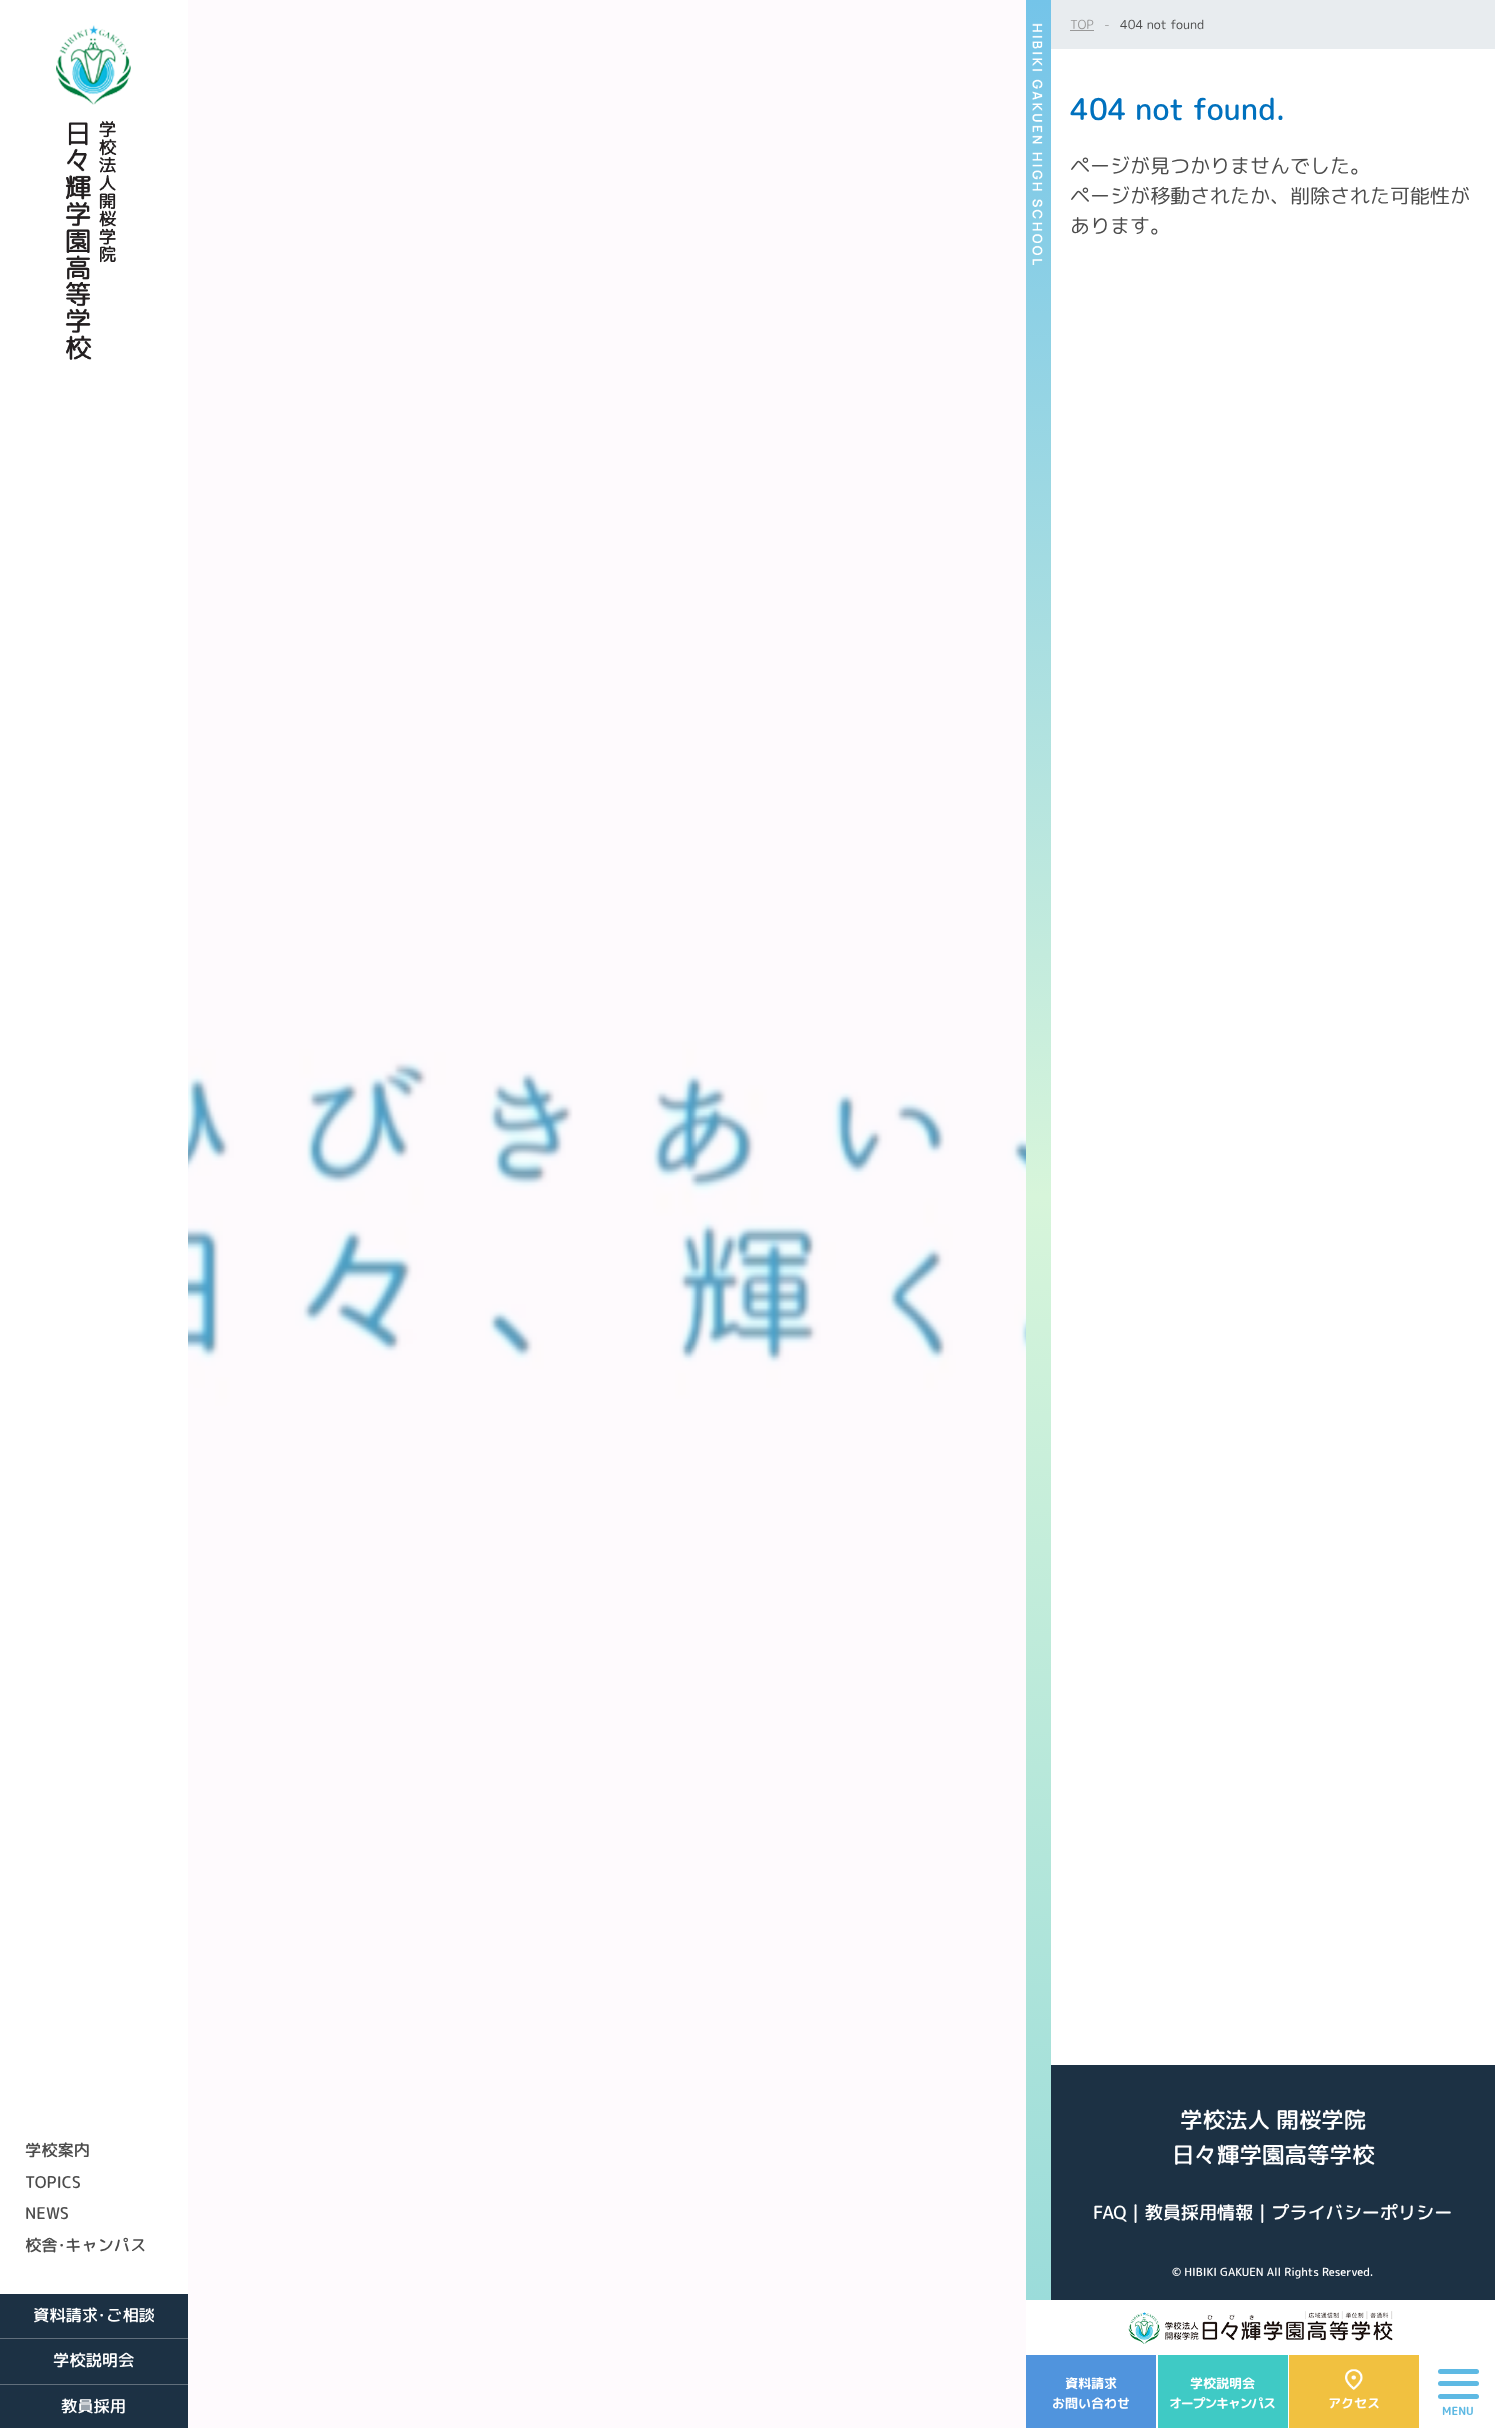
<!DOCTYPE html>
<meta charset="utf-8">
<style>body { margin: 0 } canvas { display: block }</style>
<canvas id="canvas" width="1495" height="2428"></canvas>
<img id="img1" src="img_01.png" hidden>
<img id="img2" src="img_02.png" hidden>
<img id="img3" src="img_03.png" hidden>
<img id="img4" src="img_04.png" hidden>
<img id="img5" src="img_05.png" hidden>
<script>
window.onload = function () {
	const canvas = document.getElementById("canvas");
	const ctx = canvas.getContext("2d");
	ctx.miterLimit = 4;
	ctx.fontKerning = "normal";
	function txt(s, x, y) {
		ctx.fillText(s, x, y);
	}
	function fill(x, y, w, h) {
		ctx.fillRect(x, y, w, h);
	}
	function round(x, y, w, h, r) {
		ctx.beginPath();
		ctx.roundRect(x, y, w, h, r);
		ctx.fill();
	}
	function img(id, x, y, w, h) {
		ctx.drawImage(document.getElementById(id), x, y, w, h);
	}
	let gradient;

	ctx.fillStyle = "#FFFFFF";
	fill(0, 0, 1495, 2428);
	img("img1", 56, 25, 75, 335);
	ctx.fillStyle = "#616F7C";
	fill(0, 2338, 188, 1);
	ctx.fillStyle = "#1C3144";
	fill(0, 2294, 188, 44);
	ctx.fillStyle = "#616F7C";
	fill(0, 2384, 188, 1);
	ctx.fillStyle = "#1C3144";
	fill(0, 2339, 188, 45);
	fill(0, 2385, 188, 43);
	img("img2", 188, 0, 838, 2428);
	gradient = ctx.createLinearGradient(1039, 0, 1039, 2300);
	gradient.addColorStop(0, "#74C4E9");
	gradient.addColorStop(0.52, "#D7F5DA");
	gradient.addColorStop(1, "#9BDCDA");
	ctx.fillStyle = gradient;
	fill(1026, 0, 25, 2300);
	img("img3", 1032, 23, 11, 242);
	ctx.fillStyle = "#E8ECEF";
	fill(1051, 0, 444, 49);
	ctx.fillStyle = "#999999";
	fill(1070, 30, 24, 1);
	ctx.fillStyle = "#1C3144";
	fill(1051, 2065, 444, 235);
	img("img4", 1128, 2311, 265, 33);
	ctx.fillStyle = "#5094DD";
	fill(1026, 2355, 130, 73);
	ctx.fillStyle = "#3FCAC5";
	fill(1158, 2355, 130, 73);
	ctx.fillStyle = "#F1C140";
	fill(1289, 2355, 130, 73);
	img("img5", 1345, 2369, 18, 21);
	ctx.fillStyle = "#5EB9E3";
	round(1438, 2369, 41, 5, 2.5);
	round(1438, 2381, 41, 5, 2.5);
	round(1438, 2394, 41, 5, 2.5);
	ctx.font = "500 16.25px 'Rounded Mplus 1c'";
	ctx.fillStyle = "#4C4C4C";
	txt("学校案内", 25, 2156);
	txt("TOPICS", 25, 2188);
	txt("NEWS", 25, 2219);
	txt("校舎", 25, 2251);
	ctx.font = "500 16.25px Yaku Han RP";
	txt("・", 58, 2251);
	ctx.font = "500 16.25px 'Rounded Mplus 1c'";
	txt("キャンパス", 65, 2251);
	ctx.fillStyle = "#FFFFFF";
	txt("資料請求", 33, 2321);
	ctx.font = "500 16.25px Yaku Han RP";
	txt("・", 98, 2321);
	ctx.font = "500 16.25px 'Rounded Mplus 1c'";
	txt("ご相談", 106, 2321);
	txt("学校説明会", 53, 2366);
	txt("教員採用", 61, 2412);
	ctx.font = "12.5px 'Rounded Mplus 1c'";
	ctx.fillStyle = "#999999";
	txt("TOP", 1070, 29);
	txt("-", 1104, 29);
	ctx.fillStyle = "#4C4C4C";
	txt("404 not found", 1120, 29);
	ctx.font = "500 30px 'Rounded Mplus 1c'";
	ctx.fillStyle = "#0071BE";
	txt("404 not found.", 1070, 120);
	ctx.font = "20px 'Rounded Mplus 1c'";
	ctx.fillStyle = "#4C4C4C";
	txt("ページが見つかりませんでした。", 1070, 173);
	txt("ページが移動されたか、削除された可能性が", 1070, 203);
	txt("あります。", 1070, 233);
	ctx.font = "500 22.5px 'Rounded Mplus 1c'";
	ctx.fillStyle = "#FFFFFF";
	txt("学校法人 開桜学院", 1180, 2128);
	txt("日々輝学園高等学校", 1172, 2163);
	ctx.font = "500 18.1px 'Rounded Mplus 1c'";
	txt("FAQ｜教員採用情報｜プライバシーポリシー", 1093, 2219);
	ctx.font = "500 11.25px 'Rounded Mplus 1c'";
	txt("© HIBIKI GAKUEN All Rights Reserved.", 1172, 2276);
	ctx.font = "bold 13px 'Rounded Mplus 1c Bold'";
	txt("資料請求", 1065, 2388);
	txt("お問い合わせ", 1052, 2408);
	txt("学校説明会", 1190, 2388);
	ctx.letterSpacing = "-1.25px";
	txt("オープンキャンパス", 1169, 2408);
	ctx.letterSpacing = "0px";
	txt("アクセス", 1328, 2408);
	ctx.font = "bold 11.25px 'Rounded Mplus 1c Bold'";
	ctx.fillStyle = "#5EB9E3";
	txt("MENU", 1442, 2415);
};
</script>
